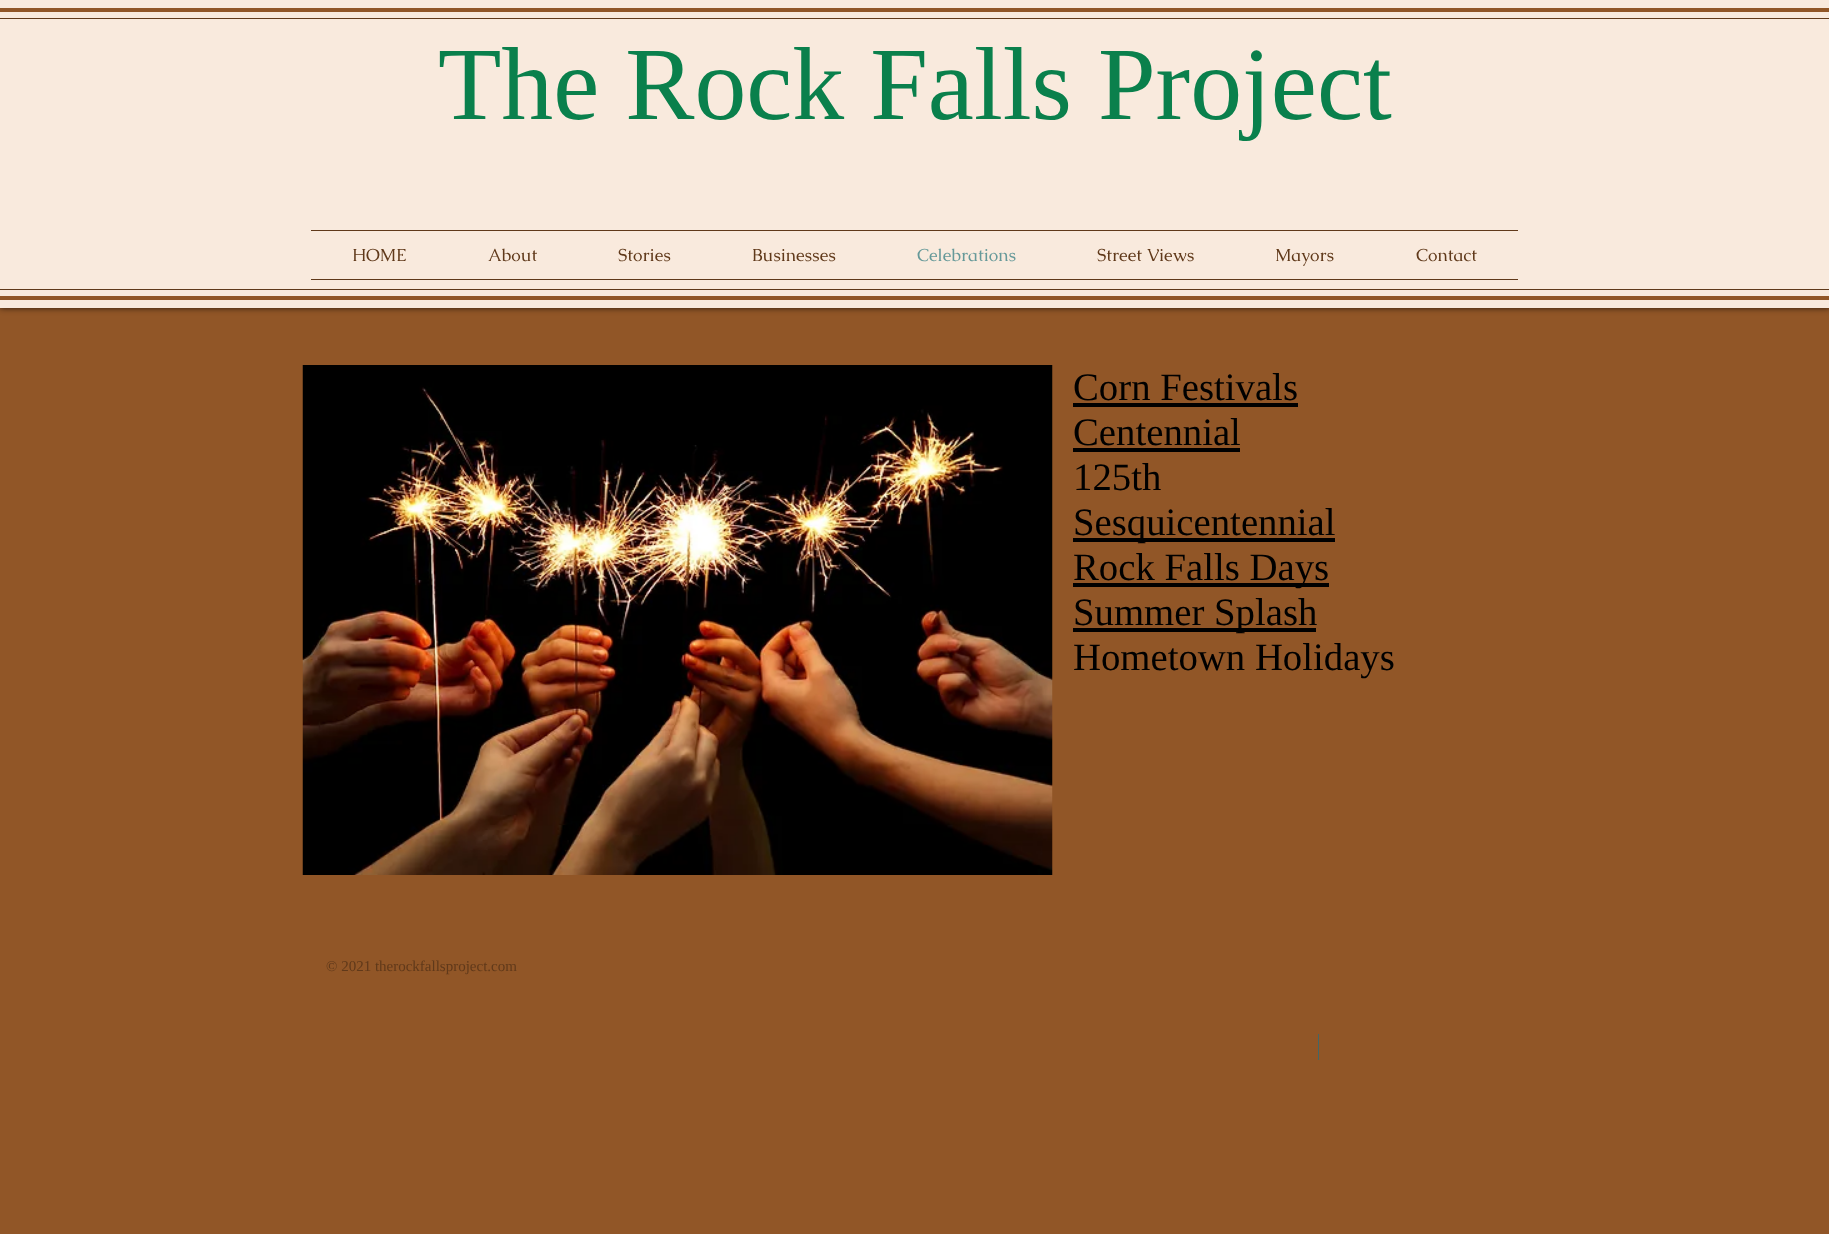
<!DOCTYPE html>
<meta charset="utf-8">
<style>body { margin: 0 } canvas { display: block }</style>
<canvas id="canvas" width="1829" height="1234"></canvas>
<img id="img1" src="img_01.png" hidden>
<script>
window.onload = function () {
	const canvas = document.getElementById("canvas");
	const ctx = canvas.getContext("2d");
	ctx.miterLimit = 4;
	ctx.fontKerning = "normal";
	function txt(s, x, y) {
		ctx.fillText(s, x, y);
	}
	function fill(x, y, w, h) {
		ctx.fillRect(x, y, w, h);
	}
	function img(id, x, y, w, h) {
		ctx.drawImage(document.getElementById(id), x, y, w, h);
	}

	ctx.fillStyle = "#915627";
	fill(0, 0, 1829, 1234);
	ctx.fillStyle = "rgba(0, 0, 0, 0.7)";
	ctx.filter = "blur(3px)";
	ctx.beginPath();
	ctx.rect(0, 0, 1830, 308);
	ctx.fill();
	ctx.filter = "none";
	ctx.fillStyle = "#F9EADD";
	fill(0, 0, 1829, 308);
	ctx.fillStyle = "#915627";
	fill(0, 8, 1829, 4);
	fill(0, 296, 1829, 4);
	ctx.fillStyle = "#60391A";
	fill(0, 18, 1829, 1);
	fill(0, 289, 1829, 1);
	fill(311, 230, 1207, 1);
	fill(311, 279, 1207, 1);
	img("img1", 302, 365, 751, 510);
	ctx.fillStyle = "#000000";
	fill(1073, 403, 225, 4);
	fill(1073, 448, 167, 4);
	fill(1073, 538, 262, 4);
	fill(1073, 583, 256, 4);
	fill(1073, 628, 243, 4);
	ctx.fillStyle = "#446666";
	fill(1318, 1034, 1, 26);
	ctx.font = "103.75px Liberation Serif";
	ctx.fillStyle = "#0A804C";
	txt("The Rock Falls Project", 438, 119);
	ctx.font = "17.5px Caudex";
	ctx.fillStyle = "#60391A";
	txt("HOME", 352, 261);
	txt("About", 488, 261);
	txt("Stories", 618, 261);
	txt("Businesses", 752, 261);
	ctx.fillStyle = "#669999";
	txt("Celebrations", 917, 261);
	ctx.fillStyle = "#60391A";
	txt("Street Views", 1097, 261);
	txt("Mayors", 1275, 261);
	txt("Contact", 1416, 261);
	ctx.font = "38.75px Liberation Serif";
	ctx.fillStyle = "#000000";
	txt("Corn Festivals", 1073, 400);
	txt("Centennial", 1073, 445);
	txt("125th", 1073, 490);
	txt("Sesquicentennial", 1073, 535);
	txt("Rock Falls Days", 1073, 580);
	txt("Summer Splash", 1073, 625);
	txt("Hometown Holidays", 1073, 670);
	ctx.font = "15px Liberation Serif";
	ctx.fillStyle = "#60391A";
	txt("© 2021 therockfallsproject.com", 326, 971);
};
</script>
